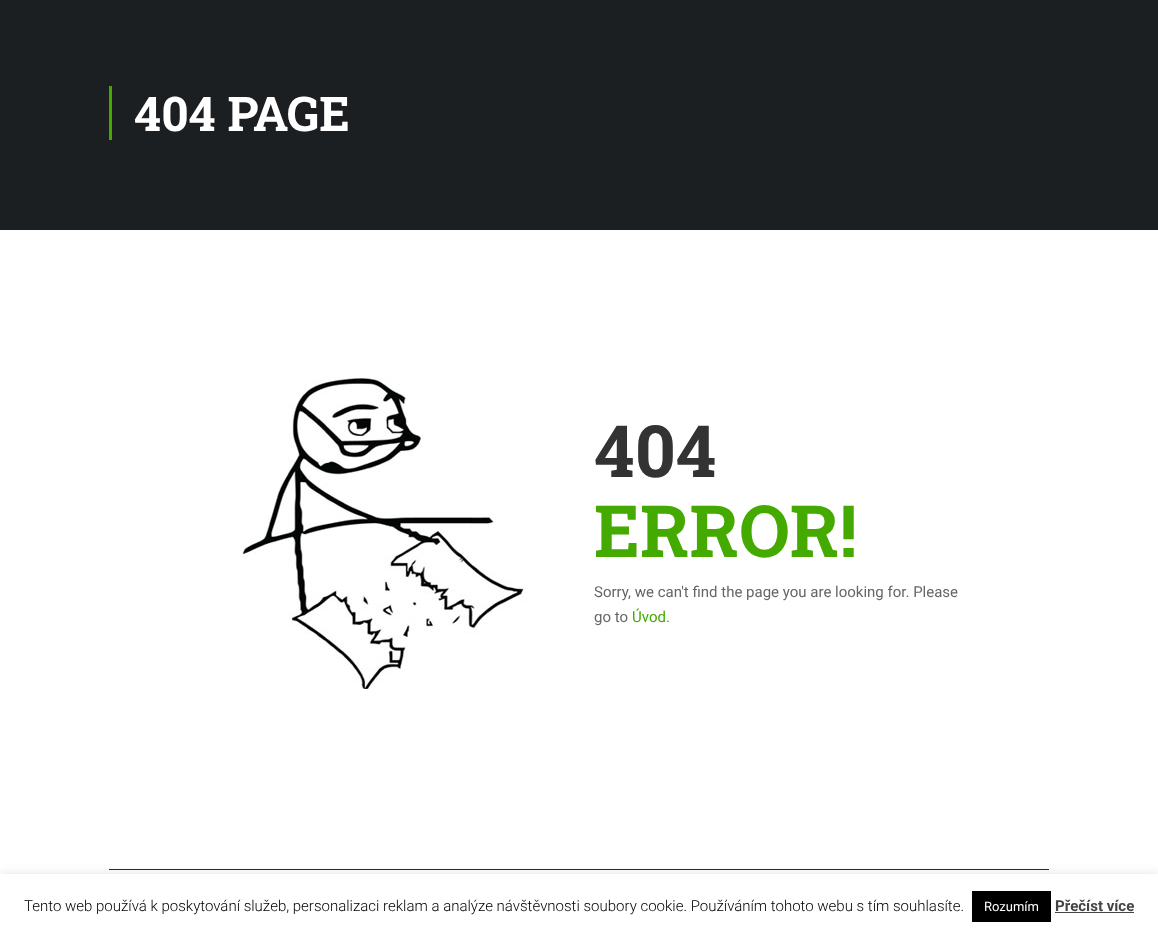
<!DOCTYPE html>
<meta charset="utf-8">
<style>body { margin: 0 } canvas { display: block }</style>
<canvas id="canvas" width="1158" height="934"></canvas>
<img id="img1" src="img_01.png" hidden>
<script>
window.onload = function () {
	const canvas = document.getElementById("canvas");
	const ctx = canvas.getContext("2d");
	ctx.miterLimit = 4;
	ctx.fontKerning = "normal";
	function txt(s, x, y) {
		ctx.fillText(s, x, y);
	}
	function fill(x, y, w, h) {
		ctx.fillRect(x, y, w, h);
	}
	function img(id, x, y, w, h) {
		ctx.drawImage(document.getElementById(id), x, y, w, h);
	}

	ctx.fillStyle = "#FFFFFF";
	fill(0, 0, 1158, 934);
	ctx.fillStyle = "#1C1F22";
	fill(0, 0, 1158, 230);
	ctx.fillStyle = "#44AA00";
	fill(109, 86, 3, 54);
	img("img1", 241, 377, 287, 312);
	ctx.fillStyle = "#222222";
	fill(109, 869, 940, 1);
	ctx.fillStyle = "rgba(172, 171, 171, 0.3)";
	ctx.filter = "blur(5px)";
	ctx.beginPath();
	ctx.rect(0, 873, 1158, 60);
	ctx.fill();
	ctx.filter = "none";
	ctx.fillStyle = "#FFFFFF";
	fill(0, 874, 1158, 60);
	ctx.fillStyle = "#000000";
	fill(972, 891, 79, 31);
	ctx.fillStyle = "#444444";
	fill(1055, 912, 79, 1);
	ctx.font = "bold 48px Roboto Slab";
	ctx.fillStyle = "#FFFFFF";
	txt("404 PAGE", 134, 131);
	ctx.font = "bold 72px Roboto Slab";
	ctx.fillStyle = "#333333";
	txt("404", 594, 477);
	ctx.fillStyle = "#44AA00";
	txt("ERROR!", 594, 557);
	ctx.font = "15px Roboto";
	ctx.fillStyle = "#666666";
	txt("Sorry, we can't find the page you are looking for. Please", 594, 597);
	txt("go to", 594, 622);
	ctx.fillStyle = "#44AA00";
	txt("Úvod.", 632, 622);
	ctx.font = "300 15px Roboto";
	ctx.fillStyle = "#000000";
	txt("Tento web používá k poskytování služeb, personalizaci reklam a analýze návštěvnosti soubory cookie. Používáním tohoto webu s tím souhlasíte.", 24, 911);
	ctx.font = "13px Roboto";
	ctx.fillStyle = "#FFFFFF";
	txt("Rozumím", 984, 911);
	ctx.font = "bold 15px Roboto";
	ctx.fillStyle = "#444444";
	txt("Přečíst více", 1055, 911);
};
</script>
